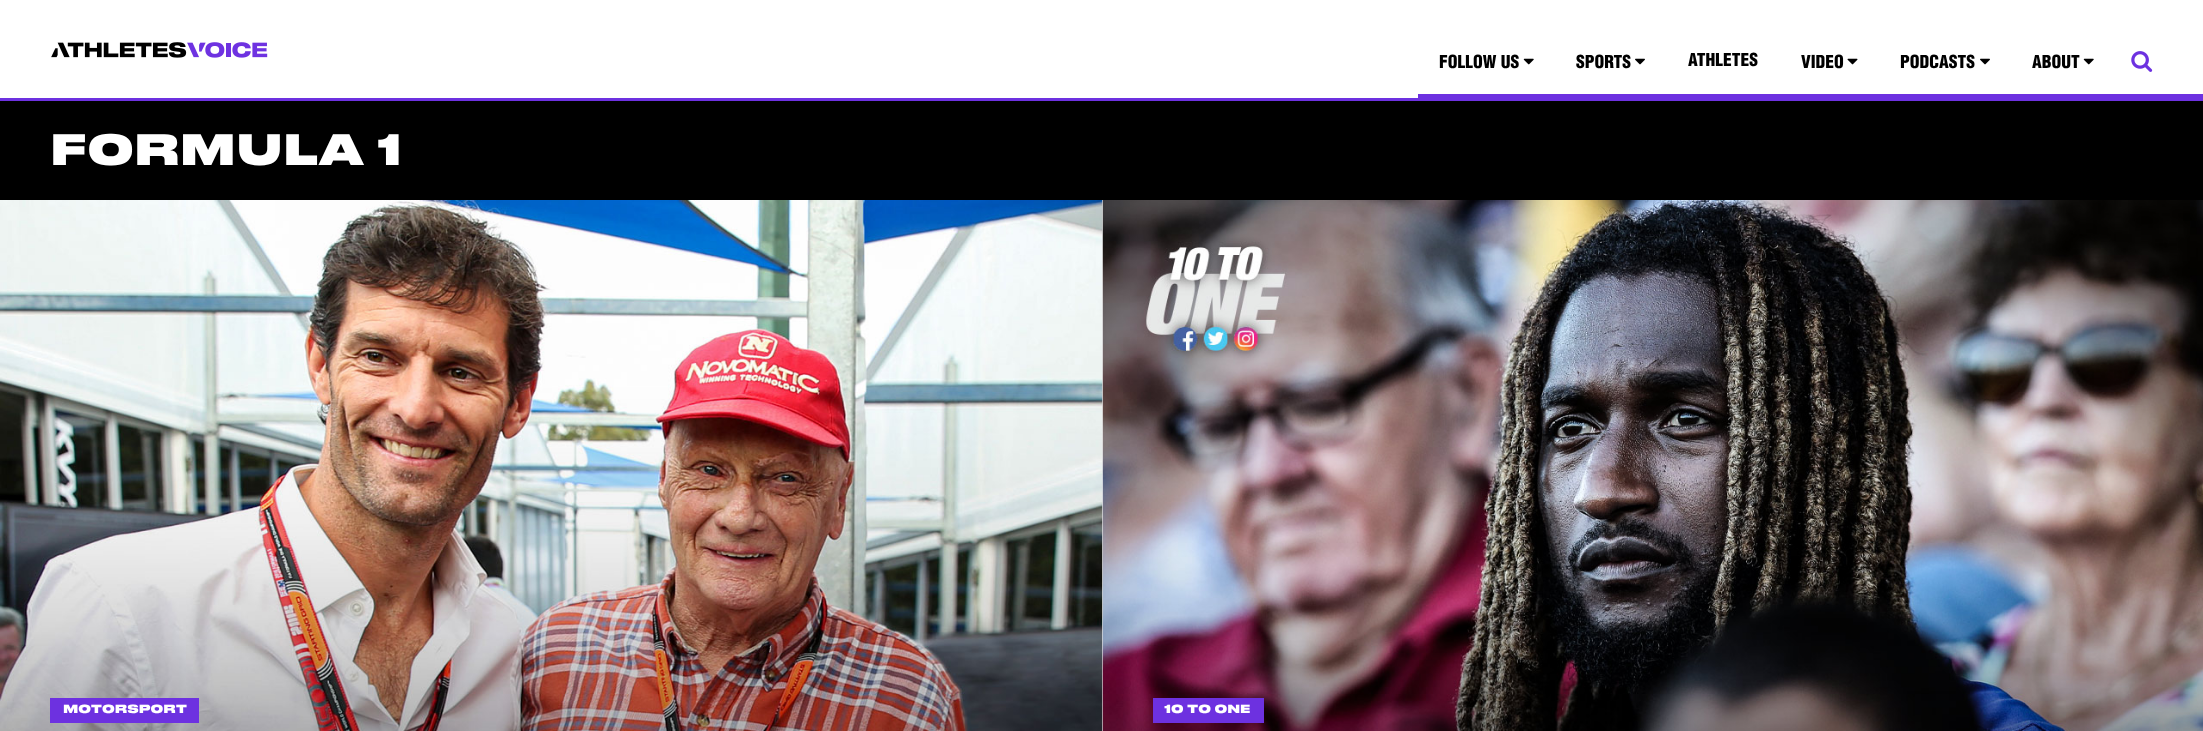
<!DOCTYPE html>
<meta charset="utf-8">
<style>body { margin: 0 } canvas { display: block }</style>
<canvas id="canvas" width="2203" height="731"></canvas>
<img id="img1" src="img_01.png" hidden>
<img id="img2" src="img_02.png" hidden>
<img id="img3" src="img_03.png" hidden>
<img id="img4" src="img_04.png" hidden>
<img id="img5" src="img_05.png" hidden>
<img id="img6" src="img_06.png" hidden>
<img id="img7" src="img_07.png" hidden>
<script>
window.onload = function () {
	const canvas = document.getElementById("canvas");
	const ctx = canvas.getContext("2d");
	ctx.miterLimit = 4;
	ctx.fontKerning = "normal";
	function txt(s, x, y) {
		ctx.fillText(s, x, y);
	}
	function fill(x, y, w, h) {
		ctx.fillRect(x, y, w, h);
	}
	function img(id, x, y, w, h) {
		ctx.drawImage(document.getElementById(id), x, y, w, h);
	}

	ctx.fillStyle = "#FFFFFF";
	fill(0, 0, 2203, 731);
	ctx.fillStyle = "#6D31E0";
	fill(0, 98, 2203, 3);
	img("img1", 51, 42, 217, 16);
	fill(1418, 94, 697, 4);
	img("img2", 1523, 58, 11, 7);
	img("img3", 1635, 58, 10, 7);
	img("img4", 1847, 58, 11, 7);
	img("img3", 1980, 58, 10, 7);
	img("img2", 2083, 58, 11, 7);
	fill(2115, 94, 88, 4);
	img("img5", 2131, 51, 22, 21);
	ctx.fillStyle = "#000000";
	fill(0, 101, 2203, 99);
	img("img6", 0, 200, 1103, 531);
	ctx.fillStyle = "#6D31E0";
	fill(50, 698, 149, 25);
	img("img7", 1102, 200, 1101, 531);
	fill(1153, 698, 111, 25);
	ctx.font = "900 17.5px Helvetica";
	ctx.fillStyle = "#000000";
	txt("FOLLOW US", 1439, 68);
	txt("SPORTS", 1576, 68);
	txt("ATHLETES", 1688, 66);
	txt("VIDEO", 1801, 68);
	txt("PODCASTS", 1900, 68);
	txt("ABOUT", 2032, 68);
	ctx.font = "900 41.25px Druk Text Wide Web";
	ctx.fillStyle = "#FFFFFF";
	txt("FORMULA 1", 50, 165);
	ctx.font = "900 11.25px Druk Text Wide Web";
	txt("MOTORSPORT", 63, 713);
	txt("10 TO ONE", 1164, 713);
};
</script>
